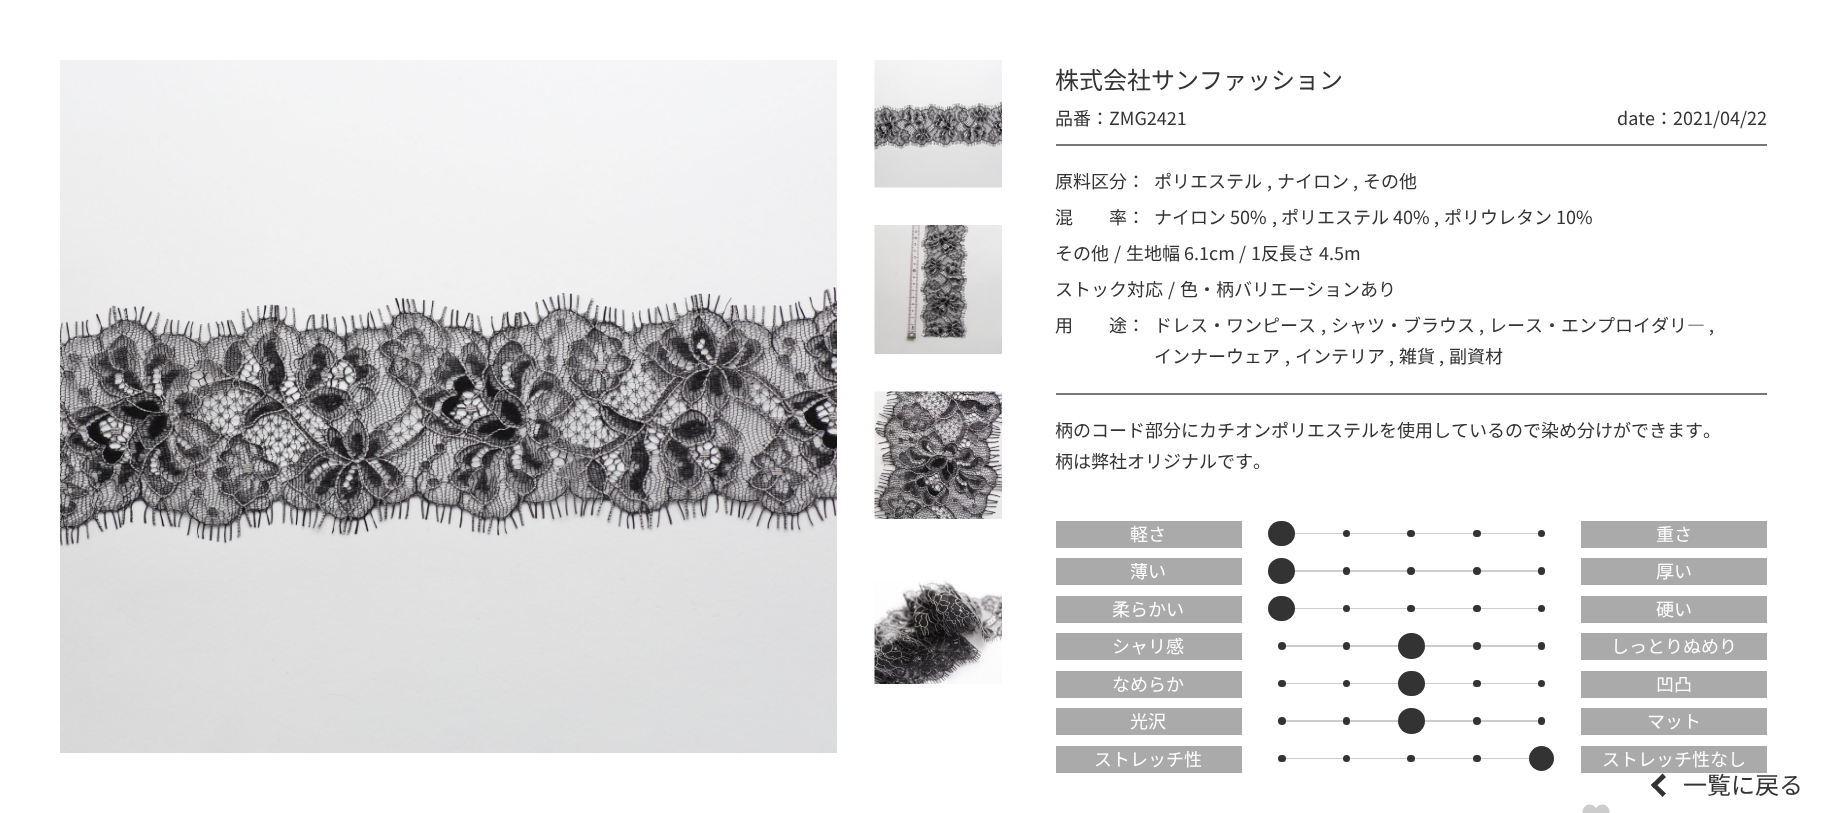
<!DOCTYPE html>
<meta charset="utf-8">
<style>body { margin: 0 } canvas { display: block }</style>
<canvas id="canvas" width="1827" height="813"></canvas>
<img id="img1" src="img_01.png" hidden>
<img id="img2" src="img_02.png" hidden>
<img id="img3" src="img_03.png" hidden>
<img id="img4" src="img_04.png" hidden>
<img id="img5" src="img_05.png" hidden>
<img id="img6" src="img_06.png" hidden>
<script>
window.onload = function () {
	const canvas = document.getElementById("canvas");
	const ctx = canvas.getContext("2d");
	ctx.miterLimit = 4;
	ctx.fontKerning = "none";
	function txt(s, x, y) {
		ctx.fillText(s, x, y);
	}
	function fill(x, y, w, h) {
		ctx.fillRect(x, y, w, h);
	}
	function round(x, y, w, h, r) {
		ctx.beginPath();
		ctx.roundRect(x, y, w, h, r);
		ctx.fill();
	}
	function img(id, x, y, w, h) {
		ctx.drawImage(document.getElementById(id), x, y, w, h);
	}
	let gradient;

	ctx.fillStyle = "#FFFFFF";
	fill(0, 0, 1827, 813);
	img("img1", 60, 60, 777, 693);
	img("img2", 874, 60, 128, 128);
	img("img3", 874, 225, 128, 129);
	img("img4", 874, 391, 128, 128);
	img("img5", 874, 580, 128, 104);
	ctx.fillStyle = "#777777";
	fill(1056, 144, 711, 2);
	fill(1056, 393, 711, 2);
	ctx.fillStyle = "#AAAAAA";
	fill(1056, 521, 186, 27);
	gradient = ctx.createLinearGradient(1412, 518, 1412, 549);
	gradient.addColorStop(0, "#FFFFFF");
	gradient.addColorStop(0.48, "#FFFFFF");
	gradient.addColorStop(0.48, "#CCCCCC");
	gradient.addColorStop(0.53, "#CCCCCC");
	gradient.addColorStop(0.53, "#FFFFFF");
	gradient.addColorStop(1, "#FFFFFF");
	ctx.fillStyle = gradient;
	fill(1278, 533, 267, 1);
	ctx.fillStyle = "#333333";
	round(1268, 521, 27, 25, 12.5);
	ctx.beginPath();
	ctx.arc(1346.5, 533.5, 3.5, 0, Math.PI * 2);
	ctx.fill();
	round(1407, 530, 8, 7, 3.5);
	round(1473, 530, 8, 7, 3.5);
	ctx.beginPath();
	ctx.arc(1541.5, 533.5, 3.5, 0, Math.PI * 2);
	ctx.fill();
	ctx.fillStyle = "#AAAAAA";
	fill(1581, 521, 186, 27);
	fill(1056, 558, 186, 27);
	gradient = ctx.createLinearGradient(1412, 555, 1412, 587);
	gradient.addColorStop(0, "#FFFFFF");
	gradient.addColorStop(0.48, "#FFFFFF");
	gradient.addColorStop(0.48, "#CCCCCC");
	gradient.addColorStop(0.53, "#CCCCCC");
	gradient.addColorStop(0.53, "#FFFFFF");
	gradient.addColorStop(1, "#FFFFFF");
	ctx.fillStyle = gradient;
	fill(1278, 570, 267, 2);
	ctx.fillStyle = "#333333";
	round(1268, 558, 27, 26, 13);
	round(1343, 567, 7, 8, 3.5);
	ctx.beginPath();
	ctx.arc(1411, 571, 4, 0, Math.PI * 2);
	ctx.fill();
	ctx.beginPath();
	ctx.arc(1477, 571, 4, 0, Math.PI * 2);
	ctx.fill();
	round(1538, 567, 7, 8, 3.5);
	ctx.fillStyle = "#AAAAAA";
	fill(1581, 558, 186, 27);
	fill(1056, 596, 186, 27);
	gradient = ctx.createLinearGradient(1412, 593, 1412, 624);
	gradient.addColorStop(0, "#FFFFFF");
	gradient.addColorStop(0.48, "#FFFFFF");
	gradient.addColorStop(0.48, "#CCCCCC");
	gradient.addColorStop(0.53, "#CCCCCC");
	gradient.addColorStop(0.53, "#FFFFFF");
	gradient.addColorStop(1, "#FFFFFF");
	ctx.fillStyle = gradient;
	fill(1278, 608, 267, 1);
	ctx.fillStyle = "#333333";
	round(1268, 596, 27, 25, 12.5);
	ctx.beginPath();
	ctx.arc(1346.5, 608.5, 3.5, 0, Math.PI * 2);
	ctx.fill();
	round(1407, 605, 8, 7, 3.5);
	round(1473, 605, 8, 7, 3.5);
	ctx.beginPath();
	ctx.arc(1541.5, 608.5, 3.5, 0, Math.PI * 2);
	ctx.fill();
	ctx.fillStyle = "#AAAAAA";
	fill(1581, 596, 186, 27);
	fill(1056, 633, 186, 27);
	gradient = ctx.createLinearGradient(1412, 630, 1412, 662);
	gradient.addColorStop(0, "#FFFFFF");
	gradient.addColorStop(0.48, "#FFFFFF");
	gradient.addColorStop(0.48, "#CCCCCC");
	gradient.addColorStop(0.53, "#CCCCCC");
	gradient.addColorStop(0.53, "#FFFFFF");
	gradient.addColorStop(1, "#FFFFFF");
	ctx.fillStyle = gradient;
	fill(1278, 645, 267, 2);
	ctx.fillStyle = "#333333";
	ctx.beginPath();
	ctx.arc(1282, 646, 4, 0, Math.PI * 2);
	ctx.fill();
	round(1343, 642, 7, 8, 3.5);
	round(1398, 633, 27, 26, 13);
	ctx.beginPath();
	ctx.arc(1477, 646, 4, 0, Math.PI * 2);
	ctx.fill();
	round(1538, 642, 7, 8, 3.5);
	ctx.fillStyle = "#AAAAAA";
	fill(1581, 633, 186, 27);
	fill(1056, 671, 186, 27);
	gradient = ctx.createLinearGradient(1412, 668, 1412, 699);
	gradient.addColorStop(0, "#FFFFFF");
	gradient.addColorStop(0.48, "#FFFFFF");
	gradient.addColorStop(0.48, "#CCCCCC");
	gradient.addColorStop(0.53, "#CCCCCC");
	gradient.addColorStop(0.53, "#FFFFFF");
	gradient.addColorStop(1, "#FFFFFF");
	ctx.fillStyle = gradient;
	fill(1278, 683, 267, 1);
	ctx.fillStyle = "#333333";
	round(1278, 680, 8, 7, 3.5);
	ctx.beginPath();
	ctx.arc(1346.5, 683.5, 3.5, 0, Math.PI * 2);
	ctx.fill();
	round(1398, 671, 27, 25, 12.5);
	round(1473, 680, 8, 7, 3.5);
	ctx.beginPath();
	ctx.arc(1541.5, 683.5, 3.5, 0, Math.PI * 2);
	ctx.fill();
	ctx.fillStyle = "#AAAAAA";
	fill(1581, 671, 186, 27);
	fill(1056, 708, 186, 27);
	gradient = ctx.createLinearGradient(1412, 705, 1412, 737);
	gradient.addColorStop(0, "#FFFFFF");
	gradient.addColorStop(0.48, "#FFFFFF");
	gradient.addColorStop(0.48, "#CCCCCC");
	gradient.addColorStop(0.53, "#CCCCCC");
	gradient.addColorStop(0.53, "#FFFFFF");
	gradient.addColorStop(1, "#FFFFFF");
	ctx.fillStyle = gradient;
	fill(1278, 720, 267, 2);
	ctx.fillStyle = "#333333";
	ctx.beginPath();
	ctx.arc(1282, 721, 4, 0, Math.PI * 2);
	ctx.fill();
	round(1343, 717, 7, 8, 3.5);
	round(1398, 708, 27, 26, 13);
	ctx.beginPath();
	ctx.arc(1477, 721, 4, 0, Math.PI * 2);
	ctx.fill();
	round(1538, 717, 7, 8, 3.5);
	ctx.fillStyle = "#AAAAAA";
	fill(1581, 708, 186, 27);
	fill(1056, 746, 186, 27);
	gradient = ctx.createLinearGradient(1412, 743, 1412, 774);
	gradient.addColorStop(0, "#FFFFFF");
	gradient.addColorStop(0.48, "#FFFFFF");
	gradient.addColorStop(0.48, "#CCCCCC");
	gradient.addColorStop(0.53, "#CCCCCC");
	gradient.addColorStop(0.53, "#FFFFFF");
	gradient.addColorStop(1, "#FFFFFF");
	ctx.fillStyle = gradient;
	fill(1278, 758, 267, 1);
	ctx.fillStyle = "#333333";
	round(1278, 755, 8, 7, 3.5);
	ctx.beginPath();
	ctx.arc(1346.5, 758.5, 3.5, 0, Math.PI * 2);
	ctx.fill();
	round(1407, 755, 8, 7, 3.5);
	round(1473, 755, 8, 7, 3.5);
	ctx.beginPath();
	ctx.arc(1541.5, 758.5, 12.5, 0, Math.PI * 2);
	ctx.fill();
	ctx.fillStyle = "#AAAAAA";
	fill(1581, 746, 186, 27);
	img("img6", 1582, 804, 28, 9);
	ctx.fillStyle = "#333333";
	ctx.beginPath();
	ctx.moveTo(1651, 785);
	ctx.lineTo(1662.5, 773.5);
	ctx.lineTo(1666, 777);
	ctx.lineTo(1654, 788.5);
	ctx.closePath();
	ctx.fill();
	ctx.beginPath();
	ctx.moveTo(1651, 785);
	ctx.lineTo(1654, 782);
	ctx.lineTo(1666, 793.5);
	ctx.lineTo(1662.5, 797);
	ctx.closePath();
	ctx.fill();
	ctx.font = "24px Noto Sans JP";
	txt("株式会社サンファッション", 1055, 89);
	ctx.font = "18px Noto Sans JP";
	txt("品番：ZMG2421", 1055, 125);
	txt("date：2021/04/22", 1617, 125);
	txt("原料区分：", 1055, 188);
	txt("ポリエステル", 1154, 188);
	txt(",", 1267, 188);
	txt("ナイロン", 1277, 188);
	txt(",", 1353, 188);
	txt("その他", 1363, 188);
	txt("混　　率：", 1055, 224);
	txt("ナイロン 50%", 1154, 224);
	txt(",", 1272, 224);
	txt("ポリエステル 40%", 1281, 224);
	txt(",", 1434, 224);
	txt("ポリウレタン 10%", 1444, 224);
	txt("その他", 1055, 260);
	txt("/", 1114, 260);
	txt("生地幅 6.1cm", 1126, 260);
	txt("/", 1239, 260);
	txt("1反長さ 4.5m", 1251, 260);
	txt("ストック対応", 1055, 296);
	txt("/", 1168, 296);
	txt("色・柄バリエーションあり", 1180, 296);
	txt("用　　途：", 1055, 332);
	txt("ドレス・ワンピース", 1154, 332);
	txt(",", 1321, 332);
	txt("シャツ・ブラウス", 1331, 332);
	txt(",", 1479, 332);
	txt("レース・エンプロイダリ―", 1489, 332);
	txt(",", 1709, 332);
	txt("インナーウェア", 1154, 363);
	txt(",", 1285, 363);
	txt("インテリア", 1295, 363);
	txt(",", 1389, 363);
	txt("雑貨", 1399, 363);
	txt(",", 1439, 363);
	txt("副資材", 1449, 363);
	txt("柄のコード部分にカチオンポリエステルを使用しているので染め分けができます。", 1055, 437);
	txt("柄は弊社オリジナルです。", 1055, 468);
	ctx.fillStyle = "#FFFFFF";
	txt("軽さ", 1130, 541);
	txt("重さ", 1656, 541);
	txt("薄い", 1130, 578);
	txt("厚い", 1656, 578);
	txt("柔らかい", 1112, 616);
	txt("硬い", 1656, 616);
	txt("シャリ感", 1112, 653);
	txt("しっとりぬめり", 1611, 653);
	txt("なめらか", 1112, 691);
	txt("凹凸", 1656, 691);
	txt("光沢", 1130, 728);
	txt("マット", 1647, 728);
	txt("ストレッチ性", 1094, 766);
	txt("ストレッチ性なし", 1602, 766);
	ctx.font = "24px Noto Sans JP";
	ctx.fillStyle = "#333333";
	txt("一覧に戻る", 1683, 794);
};
</script>
